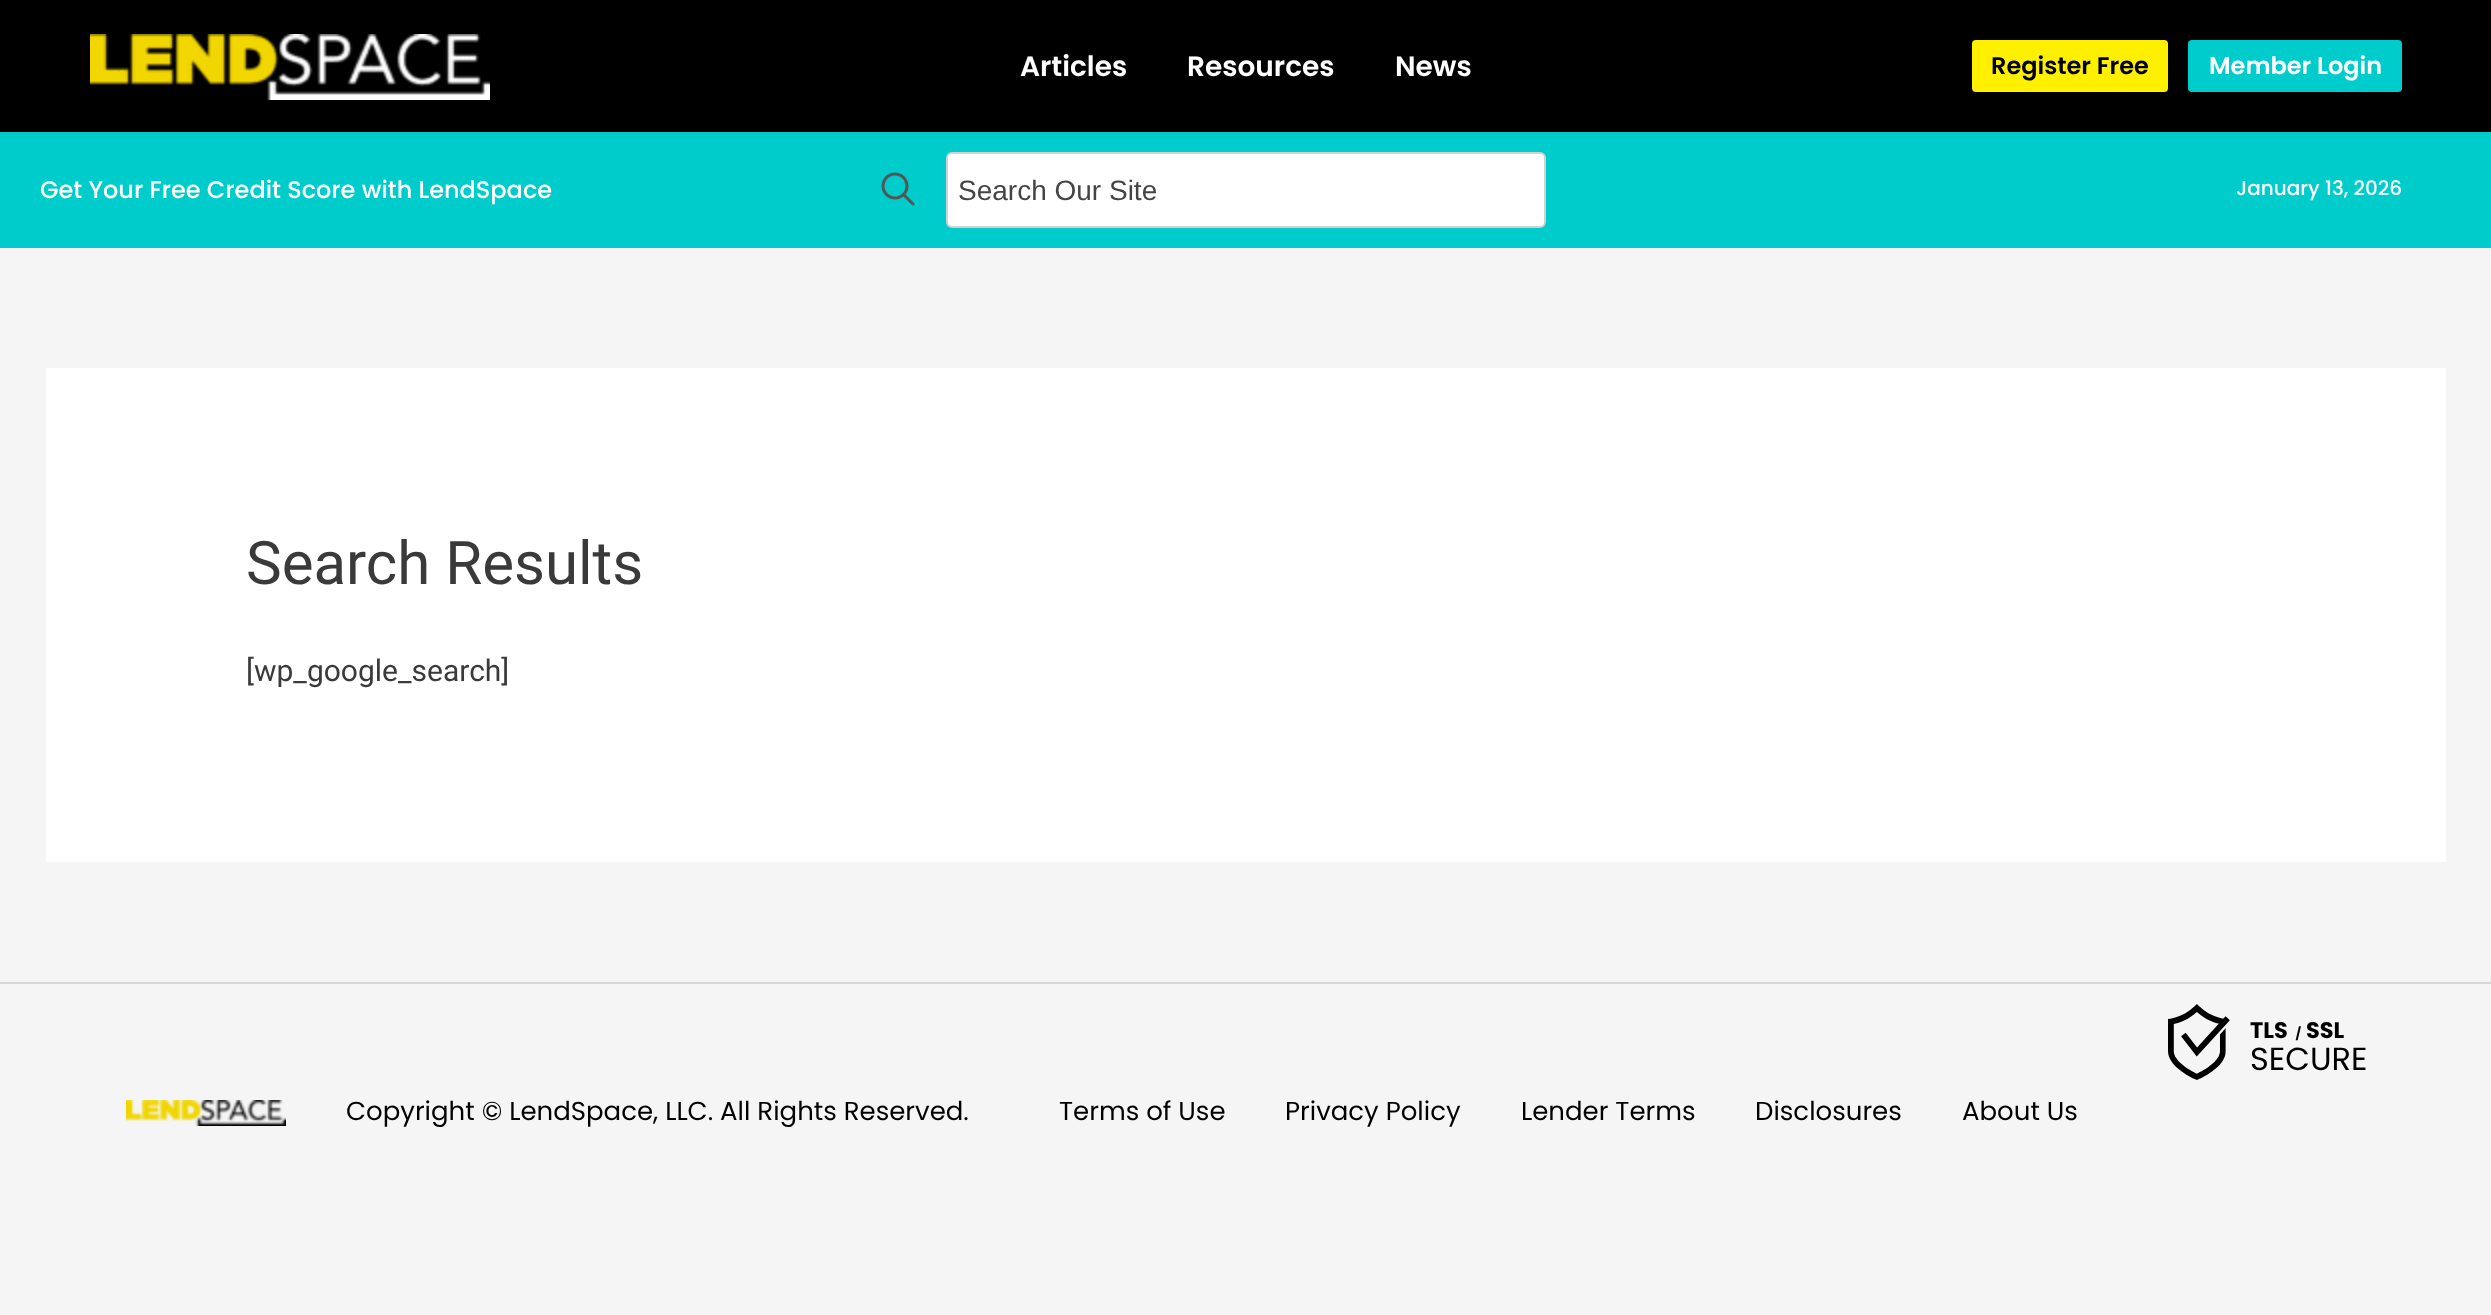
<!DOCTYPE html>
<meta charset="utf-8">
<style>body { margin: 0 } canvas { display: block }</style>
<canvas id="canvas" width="2491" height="1315"></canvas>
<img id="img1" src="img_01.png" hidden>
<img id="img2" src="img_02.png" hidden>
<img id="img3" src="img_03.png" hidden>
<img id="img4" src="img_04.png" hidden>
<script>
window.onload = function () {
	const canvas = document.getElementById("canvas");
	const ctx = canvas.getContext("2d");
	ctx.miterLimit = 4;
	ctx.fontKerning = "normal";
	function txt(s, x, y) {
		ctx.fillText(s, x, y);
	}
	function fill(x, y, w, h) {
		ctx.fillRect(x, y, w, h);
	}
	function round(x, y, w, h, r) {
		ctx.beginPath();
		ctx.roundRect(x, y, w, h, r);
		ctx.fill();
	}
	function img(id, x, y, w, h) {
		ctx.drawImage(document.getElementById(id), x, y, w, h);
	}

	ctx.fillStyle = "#F5F5F5";
	fill(0, 0, 2491, 1315);
	ctx.fillStyle = "#000000";
	fill(0, 0, 2491, 132);
	img("img1", 90, 34, 400, 66);
	ctx.fillStyle = "#FFF000";
	round(1972, 40, 196, 52, 4);
	ctx.fillStyle = "#01CCCC";
	round(2188, 40, 214, 52, 4);
	fill(0, 132, 2491, 116);
	img("img2", 881, 172, 34, 34);
	ctx.fillStyle = "#FFFFFF";
	ctx.beginPath();
	ctx.roundRect(947, 153, 598, 74, 5);
	ctx.fill();
	ctx.strokeStyle = "#D1D1D1";
	ctx.lineWidth = 2;
	ctx.stroke();
	fill(46, 368, 2400, 494);
	ctx.fillStyle = "#D8D8D8";
	fill(0, 982, 2491, 2);
	img("img3", 2168, 1004, 198, 76);
	img("img4", 126, 1100, 160, 26);
	ctx.font = "600 28px Poppins";
	ctx.fillStyle = "#FFFFFF";
	txt("Articles", 1020, 76);
	txt("Resources", 1187, 76);
	txt("News", 1395, 76);
	ctx.font = "600 24px Poppins";
	ctx.fillStyle = "#000000";
	txt("Register Free", 1991, 74);
	ctx.fillStyle = "#FFFFFF";
	txt("Member Login", 2209, 74);
	ctx.font = "500 24px Poppins";
	txt("Get Your Free Credit Score with LendSpace", 40, 198);
	ctx.font = "28px Liberation Sans";
	ctx.fillStyle = "#444444";
	txt("Search Our Site", 958, 200);
	ctx.font = "500 20px Poppins";
	ctx.fillStyle = "#FFFFFF";
	txt("January 13, 2026", 2236, 195);
	ctx.font = "60px Roboto";
	ctx.fillStyle = "#3A3A3A";
	txt("Search Results", 246, 584);
	ctx.font = "30px Roboto";
	txt("[wp_google_search]", 246, 681);
	ctx.font = "26px Poppins";
	ctx.fillStyle = "#000000";
	txt("Copyright © LendSpace, LLC. All Rights Reserved.", 346, 1120);
	txt("Terms of Use", 1059, 1120);
	txt("Privacy Policy", 1285, 1120);
	txt("Lender Terms", 1521, 1120);
	txt("Disclosures", 1755, 1120);
	txt("About Us", 1962, 1120);
};
</script>
